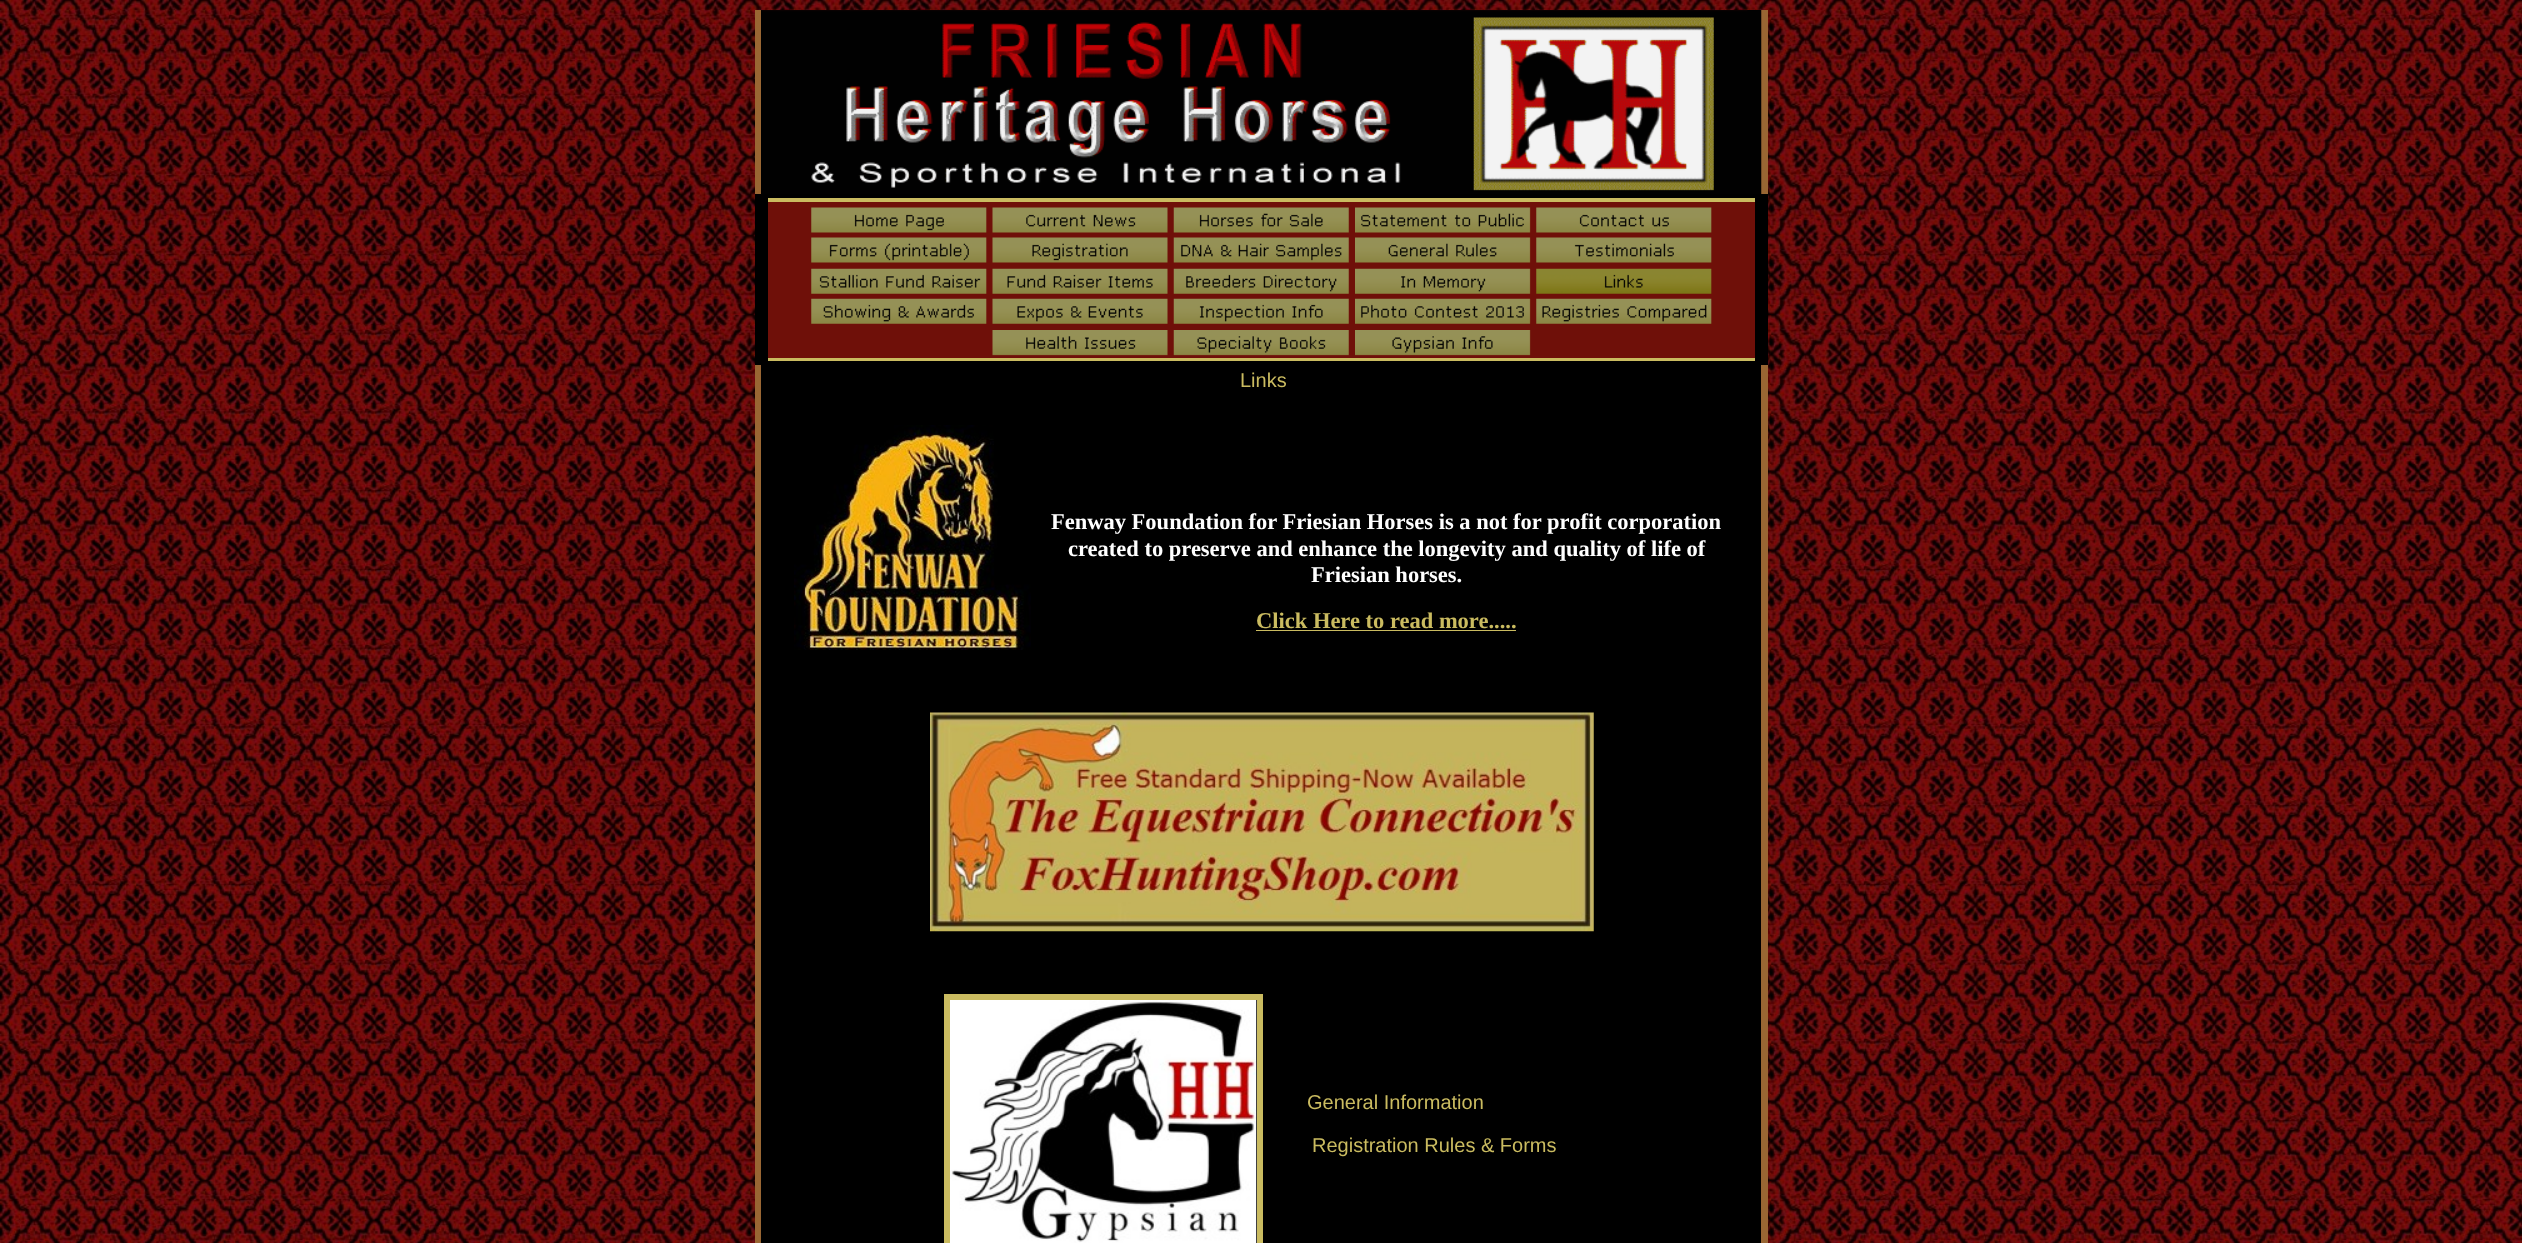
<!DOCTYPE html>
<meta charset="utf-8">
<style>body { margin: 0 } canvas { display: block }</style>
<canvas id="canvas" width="2522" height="1243"></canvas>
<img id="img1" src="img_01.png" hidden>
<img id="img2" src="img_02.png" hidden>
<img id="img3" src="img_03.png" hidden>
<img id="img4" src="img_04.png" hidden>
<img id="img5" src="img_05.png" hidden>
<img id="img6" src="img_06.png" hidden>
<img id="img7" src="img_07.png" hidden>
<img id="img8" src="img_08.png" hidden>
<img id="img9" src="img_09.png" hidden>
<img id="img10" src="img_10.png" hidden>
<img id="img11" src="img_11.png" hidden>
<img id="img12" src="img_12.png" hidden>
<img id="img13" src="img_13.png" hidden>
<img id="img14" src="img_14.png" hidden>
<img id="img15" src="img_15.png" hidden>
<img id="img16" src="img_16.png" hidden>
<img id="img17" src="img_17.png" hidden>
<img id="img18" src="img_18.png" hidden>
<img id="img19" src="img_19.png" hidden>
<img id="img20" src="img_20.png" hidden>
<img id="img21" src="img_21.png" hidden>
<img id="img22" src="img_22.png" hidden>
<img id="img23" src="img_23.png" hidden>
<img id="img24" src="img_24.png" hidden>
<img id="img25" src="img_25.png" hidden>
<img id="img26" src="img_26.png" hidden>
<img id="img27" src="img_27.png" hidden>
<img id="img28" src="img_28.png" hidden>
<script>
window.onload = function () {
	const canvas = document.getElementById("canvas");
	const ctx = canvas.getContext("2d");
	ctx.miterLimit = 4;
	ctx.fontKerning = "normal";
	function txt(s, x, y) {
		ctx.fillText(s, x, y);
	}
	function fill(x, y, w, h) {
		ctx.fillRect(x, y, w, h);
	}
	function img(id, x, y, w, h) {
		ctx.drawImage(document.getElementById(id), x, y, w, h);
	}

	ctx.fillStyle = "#FFFFFF";
	fill(0, 0, 2522, 1243);
	img("img1", 0, 0, 2522, 1243);
	ctx.fillStyle = "#996633";
	fill(755, 10, 1013, 1233);
	ctx.fillStyle = "#000000";
	fill(761, 10, 994, 188);
	img("img2", 761, 10, 1001, 184);
	ctx.fillStyle = "#6F1009";
	fill(768, 202, 987, 156);
	ctx.fillStyle = "#CABB60";
	fill(760, 358, 1003, 3);
	fill(760, 198, 995, 4);
	ctx.fillStyle = "#000000";
	fill(761, 361, 1000, 42);
	fill(1755, 194, 13, 171);
	fill(755, 194, 13, 171);
	img("img3", 811, 207, 176, 26);
	img("img4", 992, 207, 176, 26);
	img("img5", 1173, 207, 176, 26);
	img("img6", 1355, 207, 176, 26);
	img("img7", 1536, 207, 176, 26);
	img("img8", 811, 237, 176, 26);
	img("img9", 992, 237, 176, 26);
	img("img10", 1173, 237, 176, 26);
	img("img11", 1355, 237, 176, 26);
	img("img12", 1536, 237, 176, 26);
	img("img13", 811, 268, 176, 26);
	img("img14", 992, 268, 176, 26);
	img("img15", 1173, 268, 176, 26);
	img("img16", 1355, 268, 176, 26);
	img("img17", 1536, 268, 176, 26);
	img("img18", 811, 298, 176, 26);
	img("img19", 992, 298, 176, 26);
	img("img20", 1173, 298, 176, 26);
	img("img21", 1355, 298, 176, 26);
	img("img22", 1536, 298, 176, 26);
	img("img23", 992, 330, 176, 26);
	img("img24", 1173, 330, 176, 26);
	img("img25", 1355, 330, 176, 26);
	fill(761, 403, 1000, 840);
	img("img26", 794, 425, 237, 225);
	ctx.fillStyle = "#CABB60";
	fill(1256, 630, 260, 1);
	img("img27", 930, 712, 664, 220);
	ctx.strokeStyle = "#CABB60";
	ctx.lineWidth = 6;
	ctx.strokeRect(947, 997, 313, 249);
	img("img28", 950, 1000, 307, 243);
	ctx.font = "20px Liberation Sans";
	txt("Links", 1240, 387);
	ctx.font = "bold 22.5px Liberation Serif";
	ctx.fillStyle = "#FFFFFF";
	txt("Fenway Foundation for Friesian Horses is a not for profit corporation", 1051, 529);
	txt("created to preserve and enhance the longevity and quality of life of", 1068, 556);
	txt("Friesian horses.", 1311, 582);
	ctx.fillStyle = "#CABB60";
	txt("Click Here to read more.....", 1256, 628);
	ctx.font = "20px Liberation Sans";
	txt("General Information", 1307, 1109);
	txt("Registration Rules & Forms", 1312, 1152);
};
</script>
